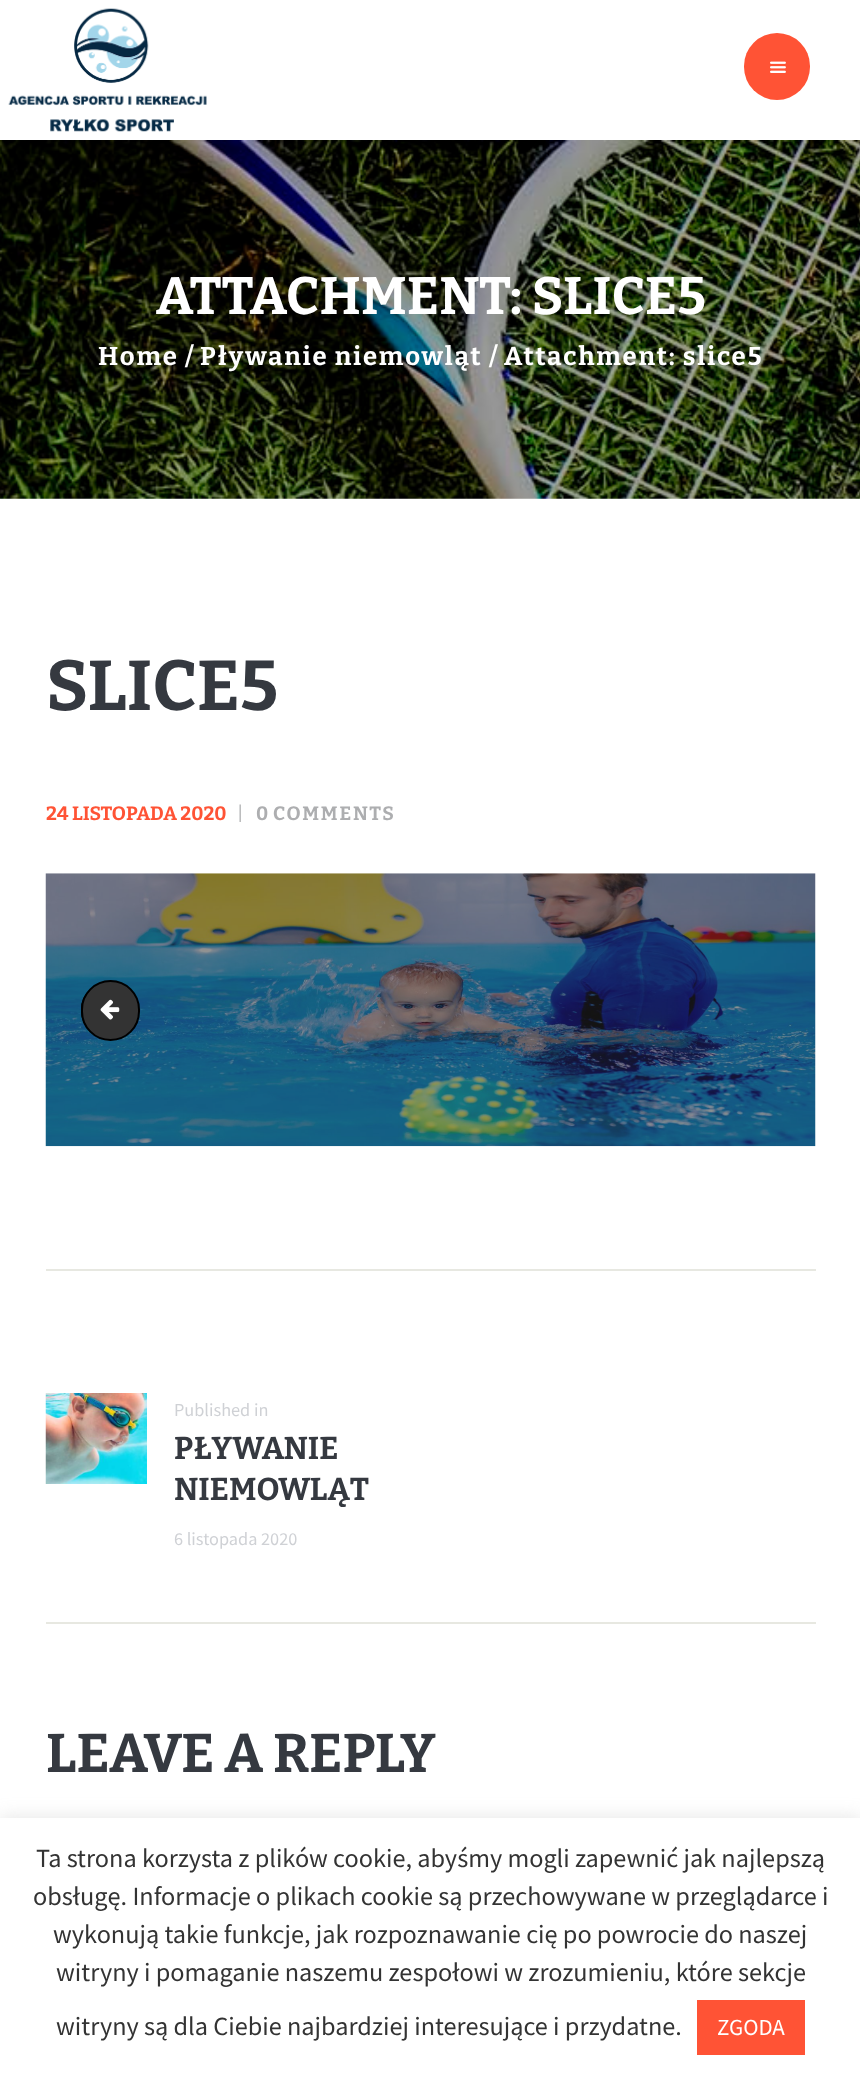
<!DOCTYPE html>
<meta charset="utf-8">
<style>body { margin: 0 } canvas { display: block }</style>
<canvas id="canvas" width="860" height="2074"></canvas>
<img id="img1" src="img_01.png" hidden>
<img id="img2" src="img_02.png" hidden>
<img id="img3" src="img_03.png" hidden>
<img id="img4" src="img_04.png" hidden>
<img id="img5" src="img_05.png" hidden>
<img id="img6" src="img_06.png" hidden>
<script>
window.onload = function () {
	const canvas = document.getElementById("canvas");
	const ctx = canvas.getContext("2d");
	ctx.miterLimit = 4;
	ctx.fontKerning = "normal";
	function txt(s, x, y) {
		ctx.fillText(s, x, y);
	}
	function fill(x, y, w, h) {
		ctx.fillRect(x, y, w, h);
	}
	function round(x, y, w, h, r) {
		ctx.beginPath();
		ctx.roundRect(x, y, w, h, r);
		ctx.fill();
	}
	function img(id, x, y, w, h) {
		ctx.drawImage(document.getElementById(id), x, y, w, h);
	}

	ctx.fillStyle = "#FFFFFF";
	fill(0, 0, 860, 2074);
	img("img1", 8, 8, 199, 124);
	ctx.fillStyle = "#FF5335";
	round(744, 33, 66, 67, 33);
	img("img2", 770, 61, 16, 12);
	img("img3", 0, 140, 860, 359);
	img("img4", 45, 873, 771, 274);
	ctx.beginPath();
	ctx.roundRect(82, 985, 47, 50, 23.5);
	ctx.strokeStyle = "#000000";
	ctx.lineWidth = 2;
	ctx.stroke();
	ctx.fillStyle = "#333333";
	ctx.beginPath();
	ctx.roundRect(82, 981, 57, 59, 28.5);
	ctx.fill();
	ctx.stroke();
	img("img5", 100, 999, 20, 21);
	ctx.fillStyle = "#E7E8E1";
	fill(46, 1269, 770, 2);
	img("img6", 45, 1393, 102, 91);
	fill(46, 1622, 770, 2);
	ctx.fillStyle = "rgba(172, 171, 171, 0.3)";
	ctx.filter = "blur(9px)";
	ctx.beginPath();
	ctx.rect(0, 1817, 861, 257);
	ctx.fill();
	ctx.filter = "none";
	ctx.fillStyle = "#FFFFFF";
	fill(0, 1818, 860, 256);
	ctx.fillStyle = "#FF5335";
	fill(697, 2000, 108, 55);
	ctx.letterSpacing = "0.2px";
	ctx.font = "bold 52.5px Bitter";
	ctx.fillStyle = "#FFFFFF";
	txt("ATTACHMENT: SLICE5", 156, 314);
	ctx.letterSpacing = "1.75px";
	ctx.font = "bold 25.75px Bitter";
	txt("Home", 98, 365);
	ctx.letterSpacing = "0px";
	txt("/", 185, 365);
	ctx.letterSpacing = "1.75px";
	txt("Pływanie niemowląt", 200, 365);
	ctx.letterSpacing = "0px";
	txt("/", 489, 365);
	ctx.letterSpacing = "1.75px";
	txt("Attachment: slice5", 504, 365);
	ctx.letterSpacing = "0px";
	ctx.font = "bold 70.5px Bitter";
	ctx.fillStyle = "#353940";
	txt("SLICE5", 46, 710);
	ctx.font = "bold 19.25px Bitter";
	ctx.fillStyle = "#FF5335";
	txt("24 LISTOPADA 2020", 46, 820);
	ctx.font = "19.25px Bitter";
	ctx.fillStyle = "#ADAEB0";
	txt("|", 237, 820);
	ctx.font = "bold 19.25px Bitter";
	txt("0", 256, 820);
	ctx.letterSpacing = "1.75px";
	txt("COMMENTS", 273, 820);
	ctx.letterSpacing = "0px";
	ctx.font = "18.25px Source Sans Pro";
	ctx.fillStyle = "#CFD1D5";
	txt("Published in", 174, 1416);
	ctx.font = "bold 31.5px Bitter";
	ctx.fillStyle = "#353940";
	txt("PŁYWANIE", 174, 1459);
	txt("NIEMOWLĄT", 174, 1500);
	ctx.font = "18.25px Source Sans Pro";
	ctx.fillStyle = "#CFD1D5";
	txt("6 listopada 2020", 174, 1545);
	ctx.font = "bold 54.5px Bitter";
	ctx.fillStyle = "#353940";
	txt("LEAVE A REPLY", 46, 1772);
	ctx.font = "26.25px Source Sans Pro";
	ctx.fillStyle = "#333333";
	txt("Ta strona korzysta z plików cookie, abyśmy mogli zapewnić jak najlepszą", 36, 1867);
	txt("obsługę. Informacje o plikach cookie są przechowywane w przeglądarce i", 33, 1905);
	txt("wykonują takie funkcje, jak rozpoznawanie cię po powrocie do naszej", 53, 1943);
	txt("witryny i pomaganie naszemu zespołowi w zrozumieniu, które sekcje", 56, 1981);
	txt("witryny są dla Ciebie najbardziej interesujące i przydatne.", 56, 2035);
	ctx.font = "23px Source Sans Pro";
	ctx.fillStyle = "#FFFFFF";
	txt("ZGODA", 717, 2035);
};
</script>
